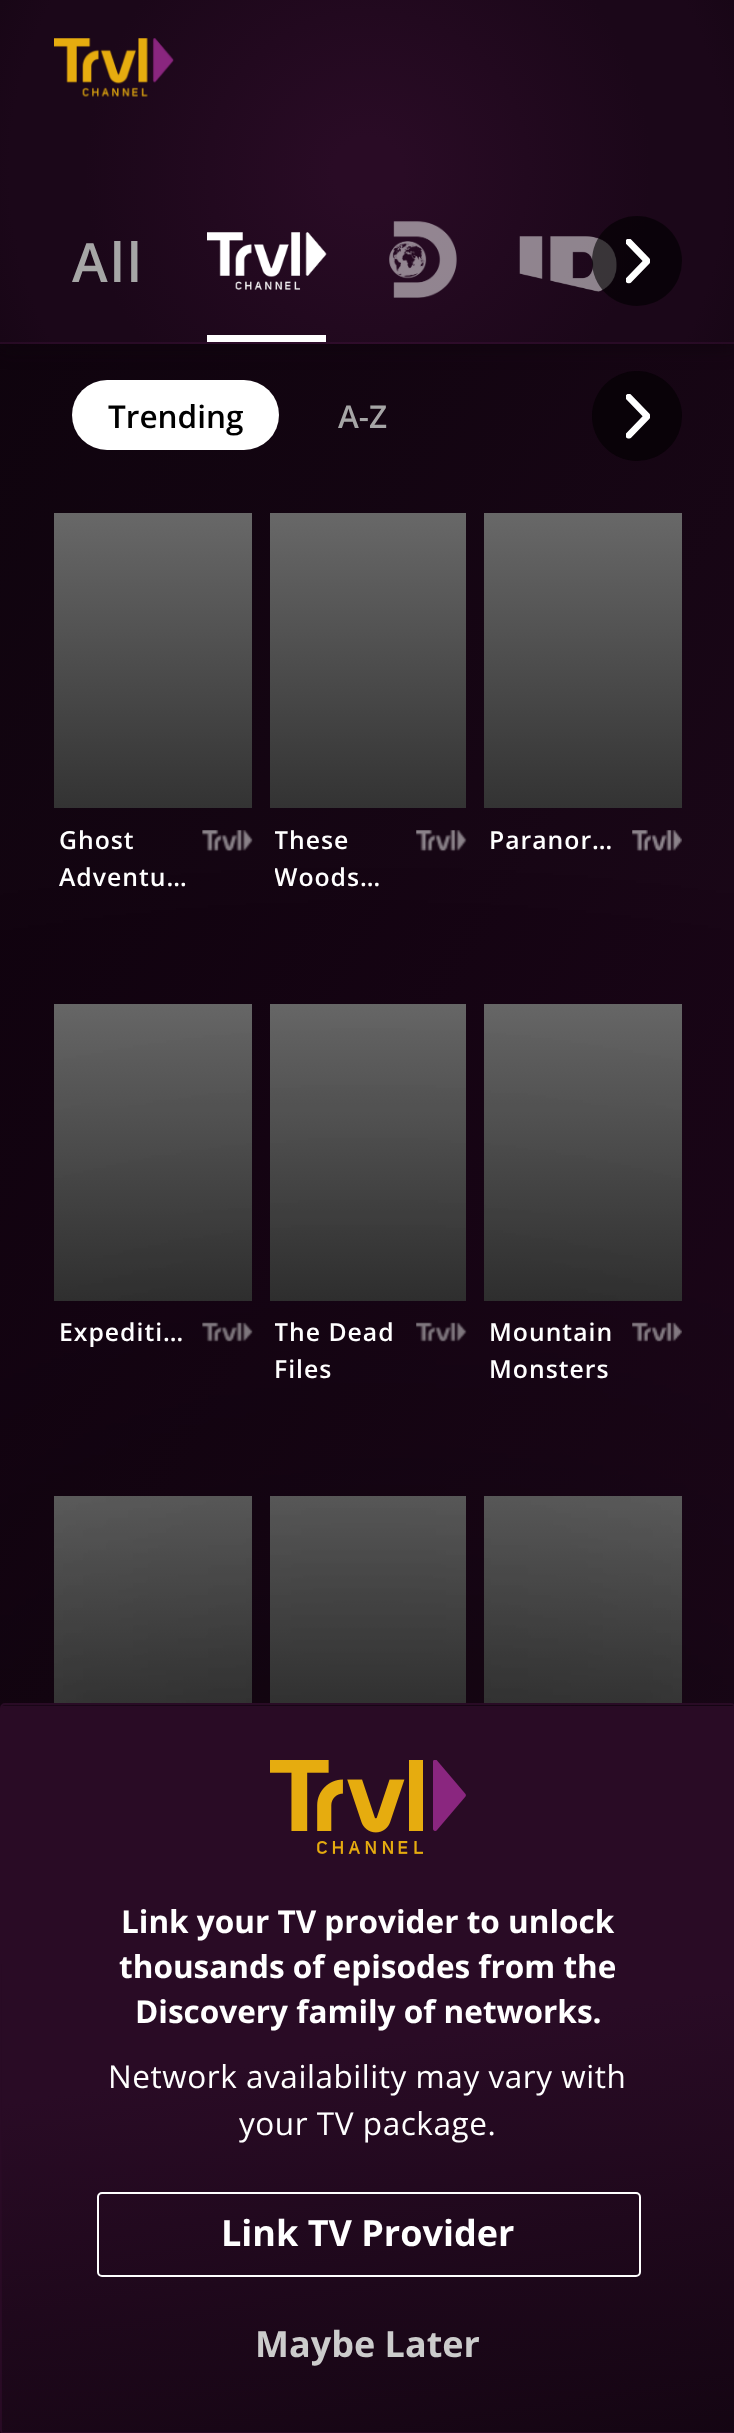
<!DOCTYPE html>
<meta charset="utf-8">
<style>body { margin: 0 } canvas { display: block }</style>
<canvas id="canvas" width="734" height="2433"></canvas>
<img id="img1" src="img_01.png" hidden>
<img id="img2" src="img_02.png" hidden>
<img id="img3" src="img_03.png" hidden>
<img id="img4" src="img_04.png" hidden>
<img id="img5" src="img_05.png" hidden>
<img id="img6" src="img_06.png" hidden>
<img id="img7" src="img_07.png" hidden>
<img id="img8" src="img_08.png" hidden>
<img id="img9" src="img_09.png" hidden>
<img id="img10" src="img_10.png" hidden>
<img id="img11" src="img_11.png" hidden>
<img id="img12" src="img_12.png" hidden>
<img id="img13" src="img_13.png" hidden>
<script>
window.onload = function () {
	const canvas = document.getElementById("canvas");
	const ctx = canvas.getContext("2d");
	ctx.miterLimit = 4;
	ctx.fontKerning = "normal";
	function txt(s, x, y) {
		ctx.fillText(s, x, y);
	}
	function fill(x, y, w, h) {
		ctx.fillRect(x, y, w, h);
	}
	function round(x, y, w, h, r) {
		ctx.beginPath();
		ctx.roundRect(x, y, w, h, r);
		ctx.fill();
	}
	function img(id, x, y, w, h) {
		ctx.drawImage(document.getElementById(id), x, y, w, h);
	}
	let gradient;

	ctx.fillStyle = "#FFFFFF";
	fill(0, 0, 734, 2433);
	gradient = ctx.createLinearGradient(-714, 1237, 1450, 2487);
	gradient.addColorStop(0, "#0D030C");
	gradient.addColorStop(1, "#290B25");
	ctx.fillStyle = gradient;
	fill(0, 344, 734, 2089);
	ctx.fillStyle = "rgba(13, 3, 12, 0.6)";
	ctx.filter = "blur(9px)";
	ctx.beginPath();
	ctx.rect(0, 5, 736, 344);
	ctx.fill();
	ctx.filter = "none";
	gradient = ctx.createRadialGradient(368, 171, 0, 368, 171, 568);
	gradient.addColorStop(0.06, "#290B25");
	gradient.addColorStop(0.5, "#1B0719");
	gradient.addColorStop(0.63, "#1B0719");
	gradient.addColorStop(1, "#0D030C");
	ctx.fillStyle = gradient;
	fill(0, 0, 734, 342);
	img("img1", 54, 38, 120, 59);
	gradient = ctx.createRadialGradient(368, 513, 0, 368, 513, 568);
	gradient.addColorStop(0.06, "#350E30");
	gradient.addColorStop(0.5, "#290B26");
	gradient.addColorStop(0.63, "#290B26");
	gradient.addColorStop(1, "#1E081B");
	ctx.fillStyle = gradient;
	fill(0, 342, 734, 2);
	ctx.save();
	ctx.beginPath();
	ctx.rect(207, 180, 119, 162);
	ctx.clip();
	ctx.fillStyle = "#FFFFFF";
	ctx.beginPath();
	ctx.moveTo(-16, -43);
	ctx.lineTo(549, -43);
	ctx.lineTo(549, 565);
	ctx.lineTo(-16, 565);
	ctx.closePath();
	ctx.moveTo(207, 169);
	ctx.lineTo(326, 169);
	ctx.bezierCurveTo(327, 169, 328, 170, 328, 171);
	ctx.lineTo(328, 333);
	ctx.bezierCurveTo(328, 334, 327, 335, 326, 335);
	ctx.lineTo(207, 335);
	ctx.bezierCurveTo(206, 335, 205, 334, 205, 333);
	ctx.lineTo(205, 171);
	ctx.bezierCurveTo(205, 170, 206, 169, 207, 169);
	ctx.closePath();
	ctx.fill("evenodd");
	ctx.restore();
	img("img2", 207, 232, 120, 58);
	img("img3", 389, 221, 68, 77);
	img("img4", 519, 236, 98, 56);
	ctx.fillStyle = "rgba(0, 0, 0, 0.6)";
	ctx.beginPath();
	ctx.arc(637, 261, 45, 0, Math.PI * 2);
	ctx.fill();
	img("img5", 626, 239, 24, 45);
	ctx.fillStyle = "#FFFFFF";
	round(72, 380, 207, 70, 35);
	ctx.fillStyle = "#090208";
	ctx.beginPath();
	ctx.arc(637, 416, 45, 0, Math.PI * 2);
	ctx.fill();
	img("img6", 626, 394, 24, 45);
	gradient = ctx.createLinearGradient(153, 513, 153, 808);
	gradient.addColorStop(0, "#686868");
	gradient.addColorStop(1, "#333333");
	ctx.fillStyle = gradient;
	fill(54, 513, 198, 295);
	img("img7", 202, 830, 51, 22);
	gradient = ctx.createLinearGradient(368, 513, 368, 808);
	gradient.addColorStop(0, "#686868");
	gradient.addColorStop(1, "#333333");
	ctx.fillStyle = gradient;
	fill(270, 513, 196, 295);
	img("img8", 416, 830, 51, 22);
	gradient = ctx.createLinearGradient(583, 513, 583, 808);
	gradient.addColorStop(0, "#686868");
	gradient.addColorStop(1, "#333333");
	ctx.fillStyle = gradient;
	fill(484, 513, 198, 295);
	img("img9", 632, 830, 50, 22);
	gradient = ctx.createLinearGradient(153, 1004, 153, 1301);
	gradient.addColorStop(0, "#686868");
	gradient.addColorStop(1, "#333333");
	ctx.fillStyle = gradient;
	fill(54, 1004, 198, 297);
	img("img10", 202, 1322, 51, 20);
	gradient = ctx.createLinearGradient(368, 1004, 368, 1301);
	gradient.addColorStop(0, "#686868");
	gradient.addColorStop(1, "#333333");
	ctx.fillStyle = gradient;
	fill(270, 1004, 196, 297);
	img("img11", 416, 1322, 51, 20);
	gradient = ctx.createLinearGradient(583, 1004, 583, 1301);
	gradient.addColorStop(0, "#686868");
	gradient.addColorStop(1, "#333333");
	ctx.fillStyle = gradient;
	fill(484, 1004, 198, 297);
	img("img12", 632, 1322, 50, 20);
	gradient = ctx.createLinearGradient(153, 1496, 153, 1791);
	gradient.addColorStop(0, "#686868");
	gradient.addColorStop(1, "#333333");
	ctx.fillStyle = gradient;
	fill(54, 1496, 198, 207);
	gradient = ctx.createLinearGradient(368, 1496, 368, 1791);
	gradient.addColorStop(0, "#686868");
	gradient.addColorStop(1, "#333333");
	ctx.fillStyle = gradient;
	fill(270, 1496, 196, 207);
	gradient = ctx.createLinearGradient(583, 1496, 583, 1791);
	gradient.addColorStop(0, "#686868");
	gradient.addColorStop(1, "#333333");
	ctx.fillStyle = gradient;
	fill(484, 1496, 198, 207);
	ctx.fillStyle = "rgba(0, 0, 0, 0.2)";
	ctx.filter = "blur(337.5px)";
	ctx.beginPath();
	ctx.roundRect(-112, 1591, 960, 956, 117);
	ctx.fill();
	ctx.filter = "none";
	ctx.fillStyle = "rgba(0, 0, 0, 0.3)";
	ctx.filter = "blur(337.5px)";
	ctx.beginPath();
	ctx.roundRect(-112, 1591, 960, 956, 117);
	ctx.fill();
	ctx.filter = "none";
	ctx.save();
	ctx.beginPath();
	ctx.roundRect(0, 1703, 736, 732, 5);
	ctx.clip();
	gradient = ctx.createLinearGradient(303, 931, 456, 1901);
	gradient.addColorStop(0.4, "#290B25");
	gradient.addColorStop(1, "#0D030C");
	ctx.fillStyle = gradient;
	fill(2, 1703, 732, 3);
	ctx.restore();
	gradient = ctx.createLinearGradient(303, 1658, 456, 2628);
	gradient.addColorStop(0.4, "#290B25");
	gradient.addColorStop(1, "#0D030C");
	ctx.fillStyle = gradient;
	fill(2, 1706, 732, 726);
	gradient = ctx.createLinearGradient(303, 2385, 456, 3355);
	gradient.addColorStop(0.4, "#290B25");
	gradient.addColorStop(1, "#0D030C");
	ctx.fillStyle = gradient;
	fill(2, 2432, 732, 1);
	ctx.beginPath();
	ctx.roundRect(1, 1704, 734, 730, 4);
	ctx.strokeStyle = "#290B25";
	ctx.lineWidth = 2;
	ctx.stroke();
	img("img13", 270, 1760, 196, 94);
	ctx.beginPath();
	ctx.roundRect(98, 2193, 542, 83, 4);
	ctx.strokeStyle = "#FFFFFF";
	ctx.stroke();
	ctx.letterSpacing = "2px";
	ctx.font = "600 54px Open Sans";
	ctx.fillStyle = "#A6A6A6";
	txt("All", 72, 282);
	ctx.letterSpacing = "0px";
	ctx.font = "600 31.5px Open Sans";
	ctx.fillStyle = "#000000";
	txt("Trending", 108, 428);
	ctx.fillStyle = "#A6A6A6";
	txt("A-Z", 338, 428);
	ctx.letterSpacing = "1px";
	ctx.font = "600 24.75px Open Sans";
	ctx.fillStyle = "#FFFFFF";
	txt("Ghost", 59, 849);
	txt("Adventu…", 59, 886);
	ctx.save();
	ctx.beginPath();
	ctx.rect(275, 821, 132, 75);
	ctx.clip();
	txt("These", 274, 849);
	txt("Woods…", 274, 886);
	ctx.restore();
	txt("Paranor…", 489, 849);
	txt("Expediti…", 59, 1341);
	ctx.save();
	ctx.beginPath();
	ctx.rect(275, 1314, 132, 74);
	ctx.clip();
	txt("The Dead", 274, 1341);
	ctx.restore();
	txt("Files", 274, 1378);
	txt("Mountain", 489, 1341);
	txt("Monsters", 489, 1378);
	ctx.letterSpacing = "0px";
	ctx.font = "bold 31.5px Open Sans";
	txt("Link your TV provider to unlock", 121, 1933);
	txt("thousands of episodes from the", 119, 1978);
	txt("Discovery family of networks.", 135, 2023);
	ctx.letterSpacing = "0.55px";
	ctx.font = "31.5px Open Sans";
	txt("Network availability may vary with", 108, 2088);
	txt("your TV package.", 239, 2135);
	ctx.letterSpacing = "0px";
	ctx.font = "bold 36px Open Sans";
	txt("Link TV Provider", 221, 2246);
	ctx.fillStyle = "#CCCCCC";
	txt("Maybe Later", 255, 2357);
};
</script>
